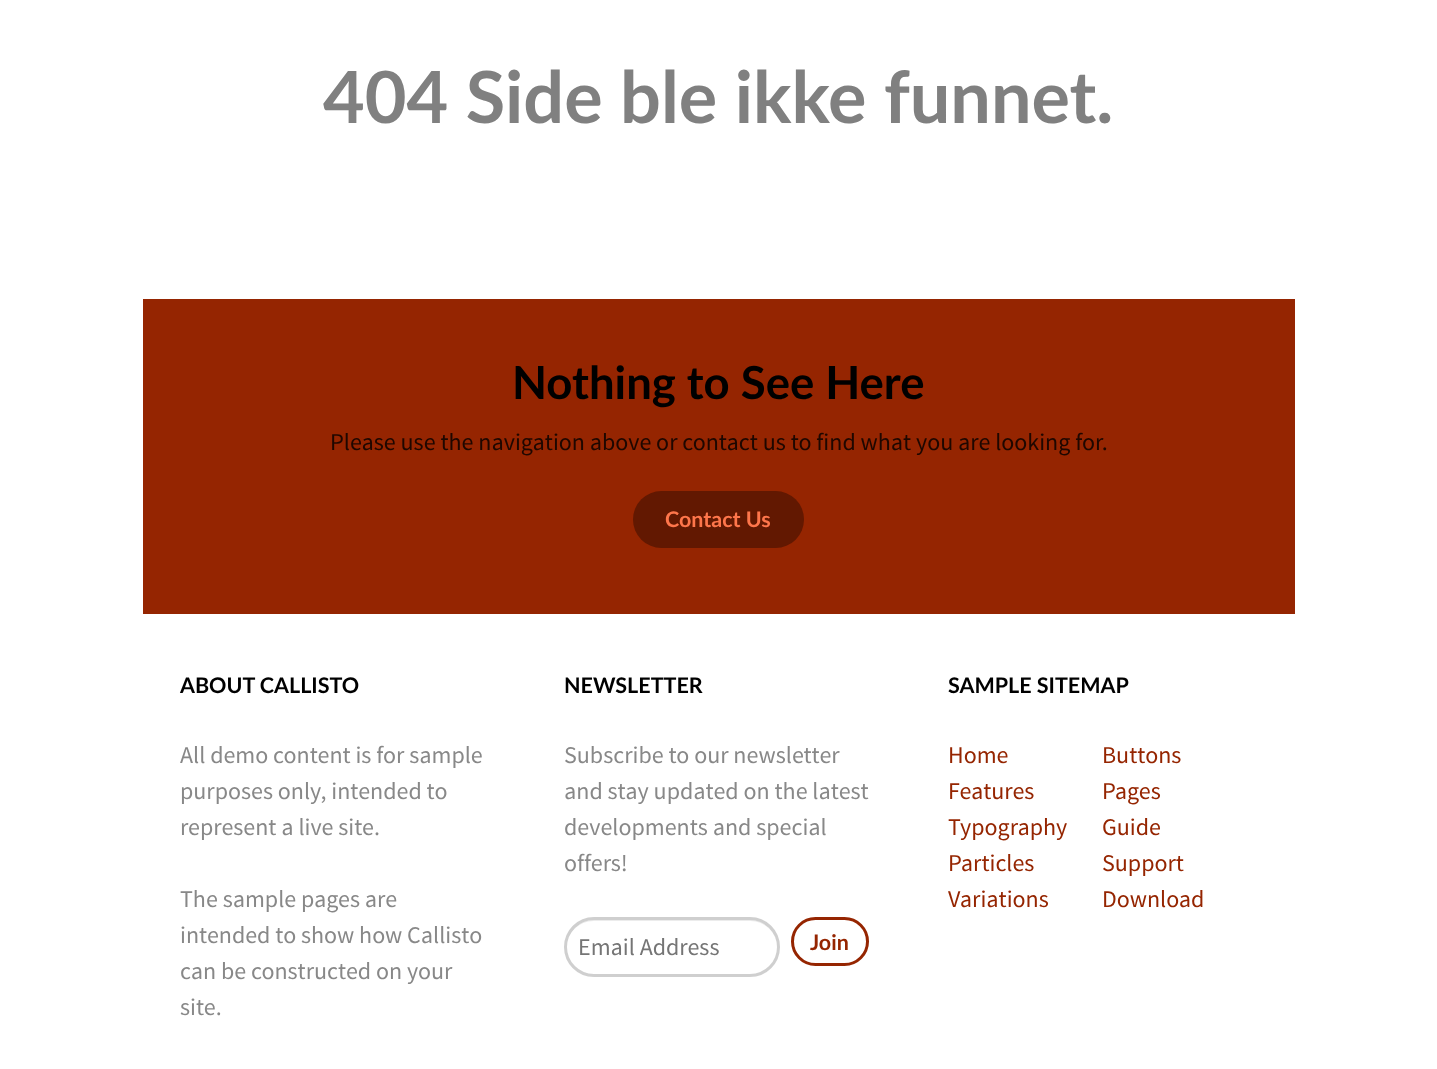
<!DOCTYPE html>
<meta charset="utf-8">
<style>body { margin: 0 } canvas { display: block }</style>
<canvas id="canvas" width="1437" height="1069"></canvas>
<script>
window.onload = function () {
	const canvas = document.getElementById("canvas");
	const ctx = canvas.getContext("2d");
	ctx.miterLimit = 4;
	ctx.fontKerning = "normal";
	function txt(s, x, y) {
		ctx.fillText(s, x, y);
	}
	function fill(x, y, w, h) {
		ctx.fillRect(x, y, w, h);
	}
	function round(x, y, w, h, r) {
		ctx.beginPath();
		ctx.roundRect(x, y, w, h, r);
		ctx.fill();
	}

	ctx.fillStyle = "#FFFFFF";
	fill(0, 0, 1437, 1069);
	ctx.fillStyle = "#952501";
	fill(143, 299, 1152, 315);
	ctx.fillStyle = "#621801";
	round(633, 491, 171, 57, 28.5);
	ctx.fillStyle = "#ECECEC";
	ctx.beginPath();
	ctx.moveTo(594, 921);
	ctx.lineTo(750, 921);
	ctx.bezierCurveTo(765, 921, 777, 933, 777, 947);
	ctx.bezierCurveTo(777, 932, 765, 920, 750, 920);
	ctx.lineTo(594, 920);
	ctx.bezierCurveTo(579, 920, 567, 932, 567, 947);
	ctx.bezierCurveTo(567, 933, 579, 921, 594, 921);
	ctx.closePath();
	ctx.fill();
	ctx.beginPath();
	ctx.roundRect(565.5, 918.5, 213, 57, 28.5);
	ctx.strokeStyle = "rgba(136, 136, 136, 0.4)";
	ctx.lineWidth = 3;
	ctx.stroke();
	ctx.beginPath();
	ctx.roundRect(792.5, 918.5, 75, 46, 23);
	ctx.strokeStyle = "#952501";
	ctx.stroke();
	ctx.font = "bold 72px Lato";
	ctx.fillStyle = "#808080";
	txt("404 Side ble ikke funnet.", 323, 123);
	ctx.font = "bold 45.5px Lato";
	ctx.fillStyle = "#000000";
	txt("Nothing to See Here", 512, 399);
	ctx.font = "24px Source Sans Pro";
	ctx.fillStyle = "#1E0700";
	txt("Please use the navigation above or contact us to find what you are looking for.", 330, 450);
	ctx.font = "bold 21.5px Lato";
	ctx.fillStyle = "#FE764B";
	txt("Contact Us", 665, 527);
	ctx.fillStyle = "#000000";
	txt("ABOUT CALLISTO", 180, 693);
	ctx.font = "24px Source Sans Pro";
	ctx.fillStyle = "#888888";
	txt("All demo content is for sample", 180, 763);
	txt("purposes only, intended to", 180, 799);
	txt("represent a live site.", 180, 835);
	txt("The sample pages are", 180, 907);
	txt("intended to show how Callisto", 180, 943);
	txt("can be constructed on your", 180, 979);
	txt("site.", 180, 1015);
	ctx.font = "bold 21.5px Lato";
	ctx.fillStyle = "#000000";
	txt("NEWSLETTER", 564, 693);
	ctx.font = "24px Source Sans Pro";
	ctx.fillStyle = "#888888";
	txt("Subscribe to our newsletter", 564, 763);
	txt("and stay updated on the latest", 564, 799);
	txt("developments and special", 564, 835);
	txt("offers!", 564, 871);
	ctx.fillStyle = "#757575";
	txt("Email Address", 578, 955);
	ctx.font = "bold 21.5px Lato";
	ctx.fillStyle = "#952501";
	txt("Join", 810, 950);
	ctx.fillStyle = "#000000";
	txt("SAMPLE SITEMAP", 948, 693);
	ctx.font = "24px Source Sans Pro";
	ctx.fillStyle = "#952501";
	txt("Home", 948, 763);
	txt("Features", 948, 799);
	txt("Typography", 948, 835);
	txt("Particles", 948, 871);
	txt("Variations", 948, 907);
	txt("Buttons", 1102, 763);
	txt("Pages", 1102, 799);
	txt("Guide", 1102, 835);
	txt("Support", 1102, 871);
	txt("Download", 1102, 907);
};
</script>
